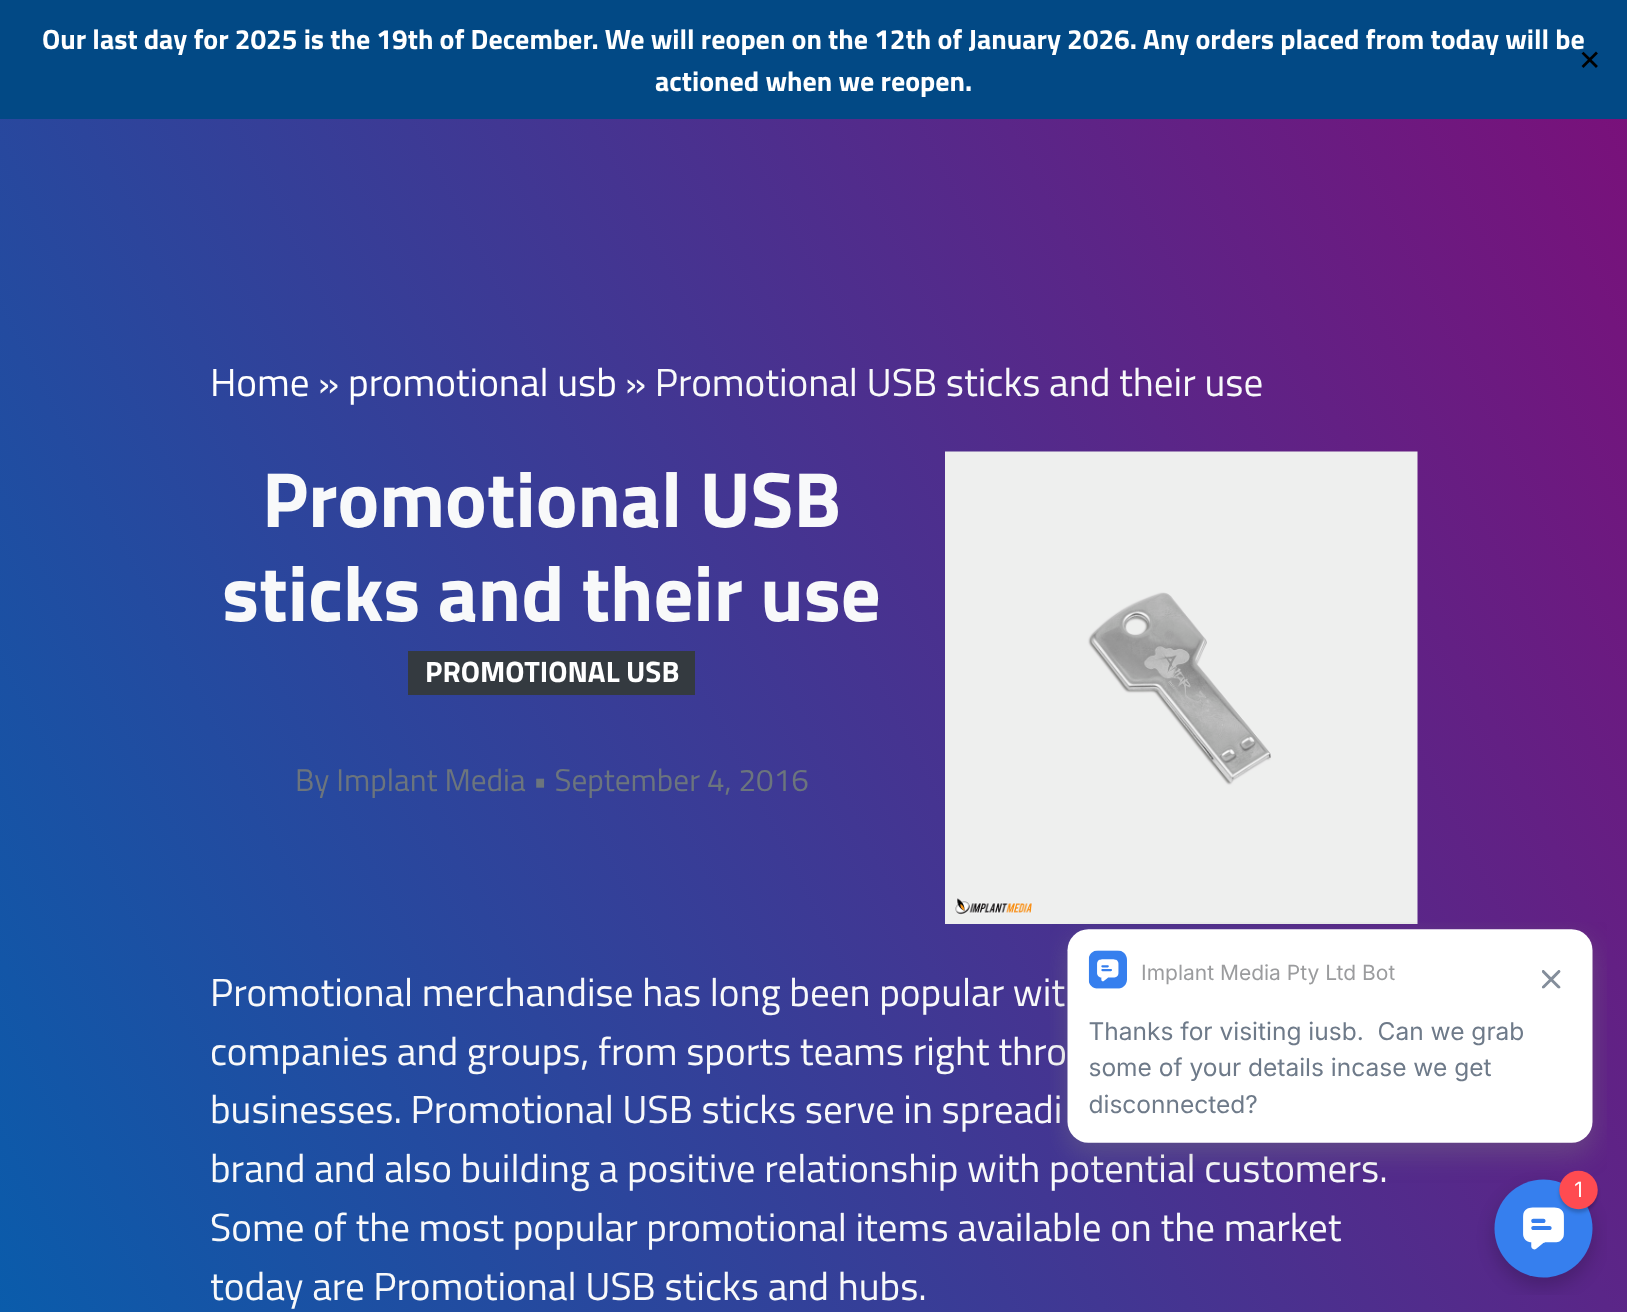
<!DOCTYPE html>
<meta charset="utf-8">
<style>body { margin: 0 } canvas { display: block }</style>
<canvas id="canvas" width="1627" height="1312"></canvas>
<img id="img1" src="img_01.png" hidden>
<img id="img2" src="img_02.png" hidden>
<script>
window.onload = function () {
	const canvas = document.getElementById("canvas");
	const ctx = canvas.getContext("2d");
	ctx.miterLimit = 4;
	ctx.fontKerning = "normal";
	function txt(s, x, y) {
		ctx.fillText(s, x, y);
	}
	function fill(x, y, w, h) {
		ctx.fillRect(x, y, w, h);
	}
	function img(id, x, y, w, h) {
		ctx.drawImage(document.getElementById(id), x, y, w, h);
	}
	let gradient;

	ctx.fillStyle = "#FFFFFF";
	fill(0, 0, 1627, 1312);
	gradient = ctx.createLinearGradient(-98, 1121, 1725, 192);
	gradient.addColorStop(0, "#0A5CAB");
	gradient.addColorStop(1, "#7C0F79");
	ctx.fillStyle = gradient;
	fill(0, 119, 1627, 1193);
	ctx.fillStyle = "#024985";
	fill(0, 0, 1627, 119);
	ctx.fillStyle = "#343A40";
	fill(408, 651, 287, 44);
	img("img1", 945, 451, 473, 473);
	ctx.font = "bold 28px Titillium Web";
	ctx.fillStyle = "#FFFFFF";
	txt("Our last day for 2025 is the 19th of December. We will reopen on the 12th of January 2026. Any orders placed from today will be", 42, 49);
	txt("actioned when we reopen.", 655, 91);
	ctx.font = "28px DejaVu Sans";
	ctx.fillStyle = "#000000";
	txt("✕", 1578, 70);
	ctx.font = "39.2px Titillium Web";
	ctx.fillStyle = "#FFFFFF";
	txt("Home", 210, 396);
	ctx.fillStyle = "#F8F9FA";
	txt("»", 318, 396);
	ctx.fillStyle = "#FFFFFF";
	txt("promotional usb", 348, 396);
	ctx.fillStyle = "#F8F9FA";
	txt("» Promotional USB sticks and their use", 625, 396);
	ctx.font = "bold 78.5px Titillium Web";
	txt("Promotional USB", 262, 527);
	txt("sticks and their use", 222, 621);
	ctx.font = "bold 29.5px Titillium Web";
	ctx.fillStyle = "#FFFFFF";
	txt("PROMOTIONAL USB", 425, 682);
	ctx.font = "31.4px Titillium Web";
	ctx.fillStyle = "#6C757D";
	txt("By Implant Media • September 4, 2016", 295, 791);
	ctx.font = "39.2px Titillium Web";
	ctx.fillStyle = "#F8F9FA";
	txt("Promotional merchandise has long been popular wit", 210, 1006);
	txt("companies and groups, from sports teams right thro", 210, 1065);
	txt("businesses. Promotional USB sticks serve in spreadi", 210, 1123);
	txt("brand and also building a positive relationship with potential customers.", 210, 1182);
	txt("Some of the most popular promotional items available on the market", 210, 1241);
	txt("today are Promotional USB sticks and hubs.", 210, 1300);
	img("img2", 1050, 922, 557, 373);
};
</script>
